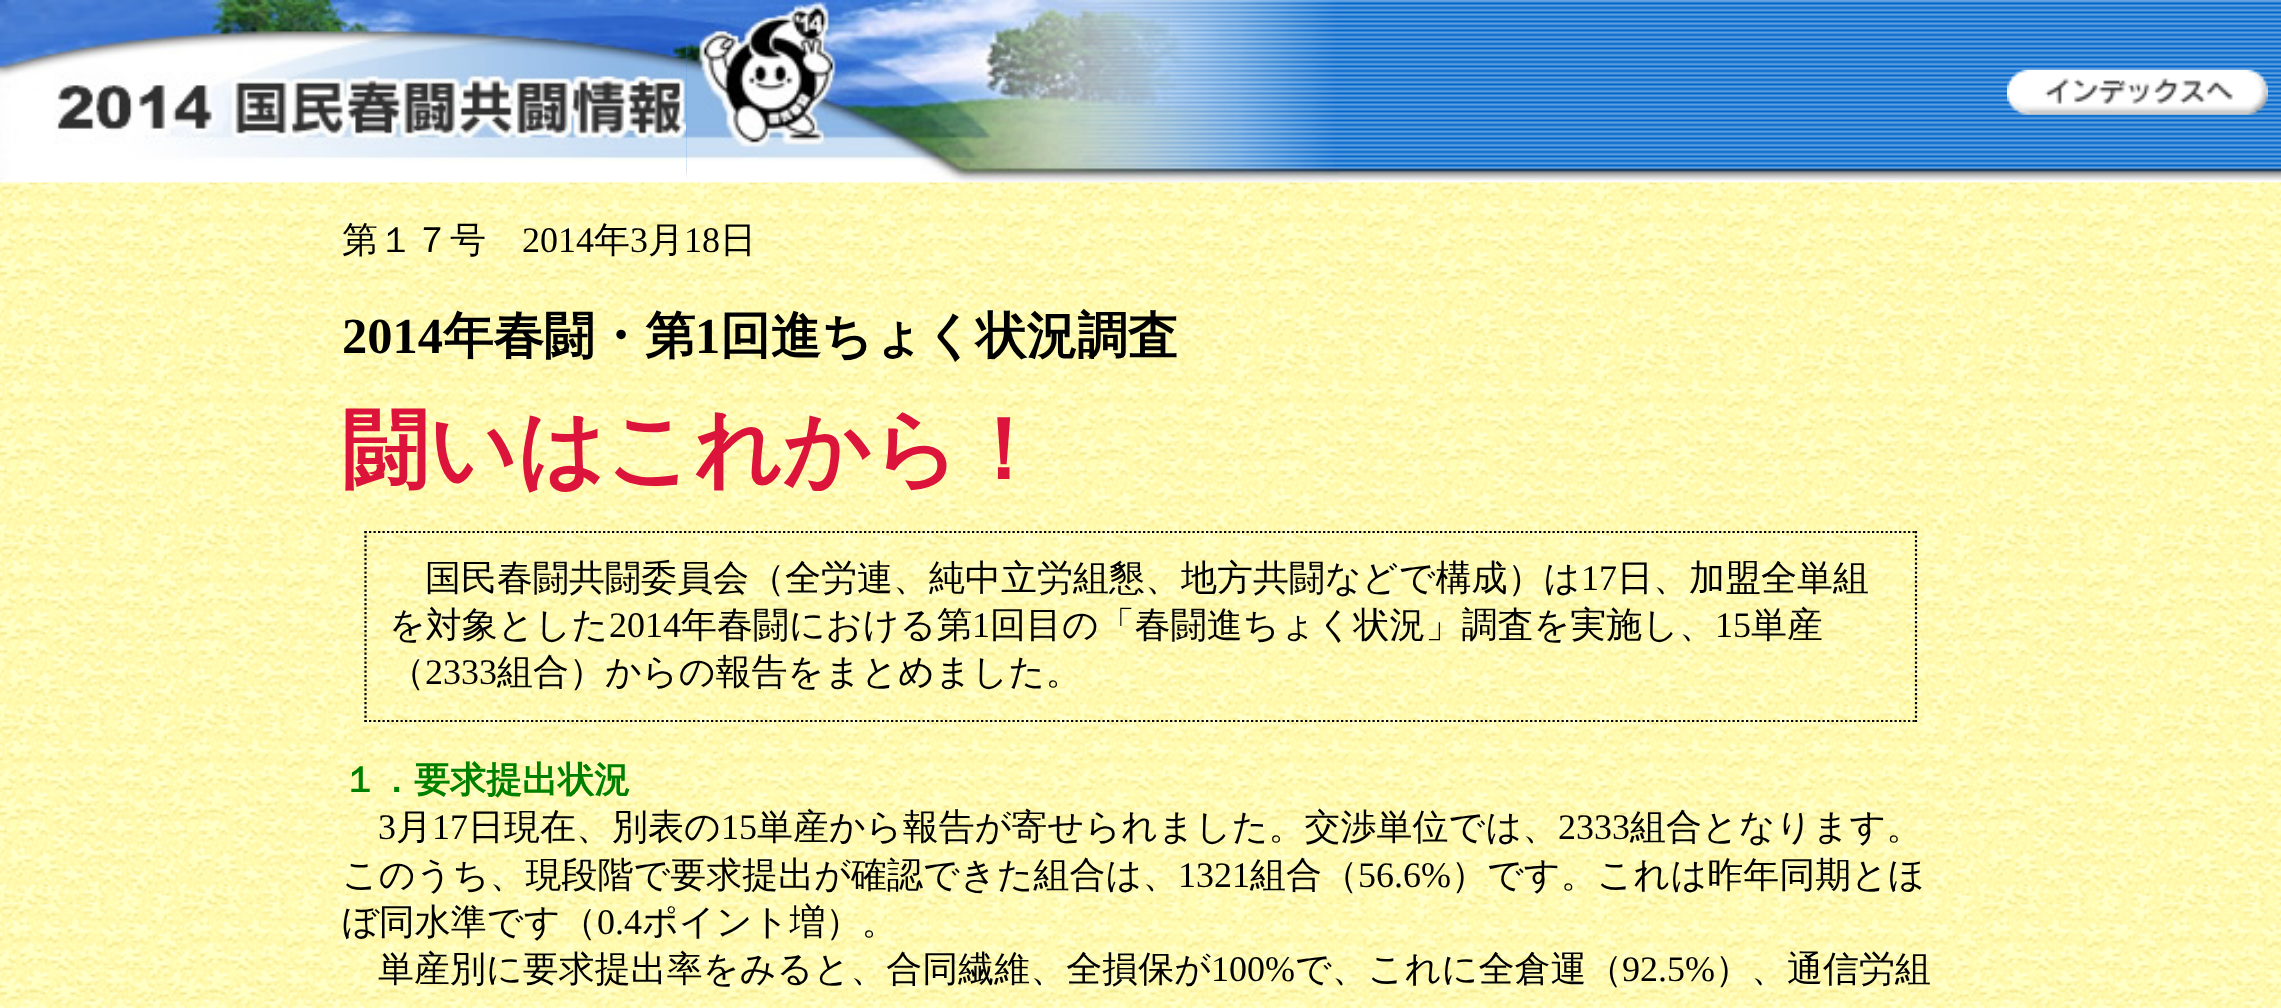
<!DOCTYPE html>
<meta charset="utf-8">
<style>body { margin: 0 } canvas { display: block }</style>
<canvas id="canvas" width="2281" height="1008"></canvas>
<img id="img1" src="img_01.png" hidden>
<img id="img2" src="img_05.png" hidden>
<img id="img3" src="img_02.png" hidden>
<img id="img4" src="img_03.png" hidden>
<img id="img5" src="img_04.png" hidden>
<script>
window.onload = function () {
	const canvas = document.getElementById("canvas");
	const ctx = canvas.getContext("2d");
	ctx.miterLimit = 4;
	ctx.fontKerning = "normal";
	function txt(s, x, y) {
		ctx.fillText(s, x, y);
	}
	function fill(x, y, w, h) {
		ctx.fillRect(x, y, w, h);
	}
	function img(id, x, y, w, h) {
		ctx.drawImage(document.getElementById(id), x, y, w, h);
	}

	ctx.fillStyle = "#FFFFFF";
	fill(0, 0, 2281, 1008);
	img("img1", 686, 0, 1595, 181);
	img("img2", 0, 182, 2281, 826);
	img("img3", 0, 0, 687, 183);
	img("img4", 686, 0, 653, 183);
	img("img5", 2007, 69, 261, 46);
	ctx.beginPath();
	ctx.moveTo(364.5, 532);
	ctx.lineTo(1917, 532);
	ctx.strokeStyle = "#000000";
	ctx.lineWidth = 2.2;
	ctx.setLineDash([2.25, 2.25]);
	ctx.stroke();
	ctx.beginPath();
	ctx.moveTo(1916, 531);
	ctx.lineTo(1916, 722);
	ctx.stroke();
	ctx.beginPath();
	ctx.moveTo(364.5, 721);
	ctx.lineTo(1917, 721);
	ctx.stroke();
	ctx.beginPath();
	ctx.moveTo(365.5, 531);
	ctx.lineTo(365.5, 722);
	ctx.stroke();
	ctx.font = "500 36px WenQuanYi Zen Hei";
	ctx.fillStyle = "#000000";
	txt("第１７号", 342, 252);
	ctx.font = "36px Liberation Serif";
	txt("2014", 522, 252);
	ctx.font = "500 36px WenQuanYi Zen Hei";
	txt("年", 594, 252);
	ctx.font = "36px Liberation Serif";
	txt("3", 630, 252);
	ctx.font = "500 36px WenQuanYi Zen Hei";
	txt("月", 648, 252);
	ctx.font = "36px Liberation Serif";
	txt("18", 684, 252);
	ctx.font = "500 36px WenQuanYi Zen Hei";
	txt("日", 720, 252);
	ctx.font = "bold 50.5px Liberation Serif";
	txt("2014", 342, 353);
	ctx.font = "bold 50.5px WenQuanYi Zen Hei";
	txt("年春闘・第", 443, 353);
	ctx.font = "bold 50.5px Liberation Serif";
	txt("1", 695, 353);
	ctx.font = "bold 50.5px WenQuanYi Zen Hei";
	txt("回進ちょく状況調査", 720, 353);
	ctx.font = "bold 86.5px WenQuanYi Zen Hei";
	ctx.fillStyle = "#DC143C";
	txt("闘いはこれから！", 342, 479);
	ctx.font = "500 36px WenQuanYi Zen Hei";
	ctx.fillStyle = "#000000";
	txt("国民春闘共闘委員会（全労連、純中立労組懇、地方共闘などで構成）は", 425, 590);
	ctx.font = "36px Liberation Serif";
	txt("17", 1581, 590);
	ctx.font = "500 36px WenQuanYi Zen Hei";
	txt("日、加盟全単組", 1617, 590);
	txt("を対象とした", 389, 637);
	ctx.font = "36px Liberation Serif";
	txt("2014", 609, 637);
	ctx.font = "500 36px WenQuanYi Zen Hei";
	txt("年春闘における第", 681, 637);
	ctx.font = "36px Liberation Serif";
	txt("1", 972, 637);
	ctx.font = "500 36px WenQuanYi Zen Hei";
	txt("回目の「春闘進ちょく状況」調査を実施し、", 990, 637);
	ctx.font = "36px Liberation Serif";
	txt("15", 1715, 637);
	ctx.font = "500 36px WenQuanYi Zen Hei";
	txt("単産", 1751, 637);
	txt("（", 389, 684);
	ctx.font = "36px Liberation Serif";
	txt("2333", 425, 684);
	ctx.font = "500 36px WenQuanYi Zen Hei";
	txt("組合）からの報告をまとめました。", 497, 684);
	ctx.font = "bold 36px WenQuanYi Zen Hei";
	ctx.fillStyle = "#008000";
	txt("１．要求提出状況", 342, 792);
	ctx.font = "36px Liberation Serif";
	ctx.fillStyle = "#000000";
	txt("3", 378, 839);
	ctx.font = "500 36px WenQuanYi Zen Hei";
	txt("月", 396, 839);
	ctx.font = "36px Liberation Serif";
	txt("17", 432, 839);
	ctx.font = "500 36px WenQuanYi Zen Hei";
	txt("日現在、別表の", 468, 839);
	ctx.font = "36px Liberation Serif";
	txt("15", 721, 839);
	ctx.font = "500 36px WenQuanYi Zen Hei";
	txt("単産から報告が寄せられました。交渉単位では、", 757, 839);
	ctx.font = "36px Liberation Serif";
	txt("2333", 1558, 839);
	ctx.font = "500 36px WenQuanYi Zen Hei";
	txt("組合となります。", 1630, 839);
	txt("このうち、現段階で要求提出が確認できた組合は、", 342, 887);
	ctx.font = "36px Liberation Serif";
	txt("1321", 1178, 887);
	ctx.font = "500 36px WenQuanYi Zen Hei";
	txt("組合（", 1250, 887);
	ctx.font = "36px Liberation Serif";
	txt("56.6%", 1358, 887);
	ctx.font = "500 36px WenQuanYi Zen Hei";
	txt("）です。これは昨年同期とほ", 1451, 887);
	txt("ぼ同水準です（", 342, 934);
	ctx.font = "36px Liberation Serif";
	txt("0.4", 597, 934);
	ctx.font = "500 36px WenQuanYi Zen Hei";
	txt("ポイント増）。", 642, 934);
	txt("単産別に要求提出率をみると、合同繊維、全損保が", 378, 981);
	ctx.font = "36px Liberation Serif";
	txt("100%", 1211, 981);
	ctx.font = "500 36px WenQuanYi Zen Hei";
	txt("で、これに全倉運（", 1295, 981);
	ctx.font = "36px Liberation Serif";
	txt("92.5%", 1622, 981);
	ctx.font = "500 36px WenQuanYi Zen Hei";
	txt("）、通信労組", 1715, 981);
};
</script>
